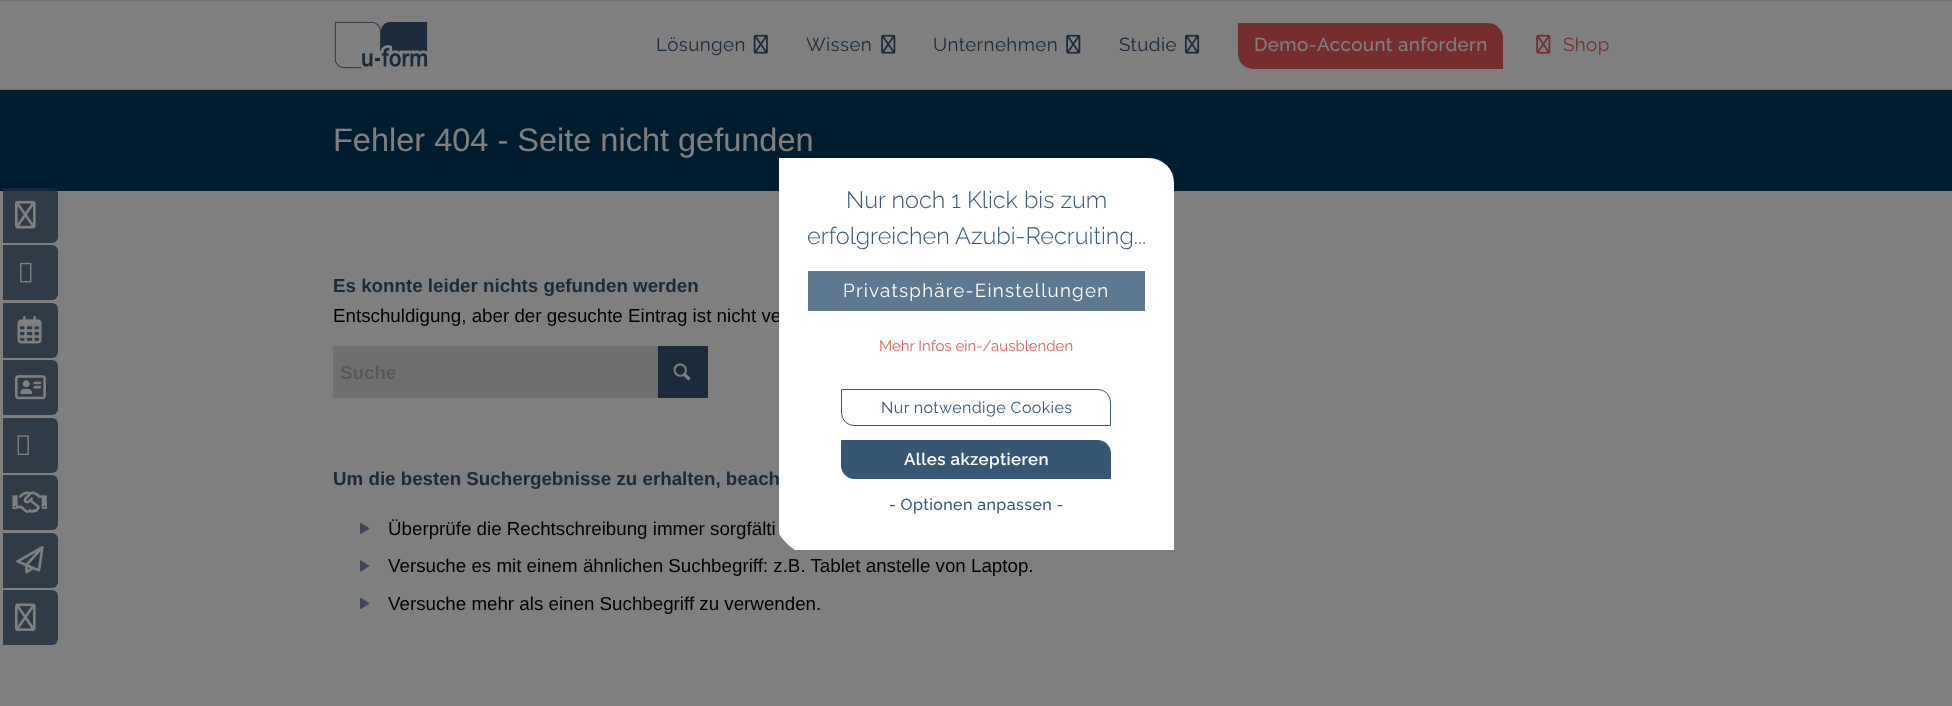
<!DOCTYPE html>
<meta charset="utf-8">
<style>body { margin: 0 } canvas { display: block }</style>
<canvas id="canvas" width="1952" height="706"></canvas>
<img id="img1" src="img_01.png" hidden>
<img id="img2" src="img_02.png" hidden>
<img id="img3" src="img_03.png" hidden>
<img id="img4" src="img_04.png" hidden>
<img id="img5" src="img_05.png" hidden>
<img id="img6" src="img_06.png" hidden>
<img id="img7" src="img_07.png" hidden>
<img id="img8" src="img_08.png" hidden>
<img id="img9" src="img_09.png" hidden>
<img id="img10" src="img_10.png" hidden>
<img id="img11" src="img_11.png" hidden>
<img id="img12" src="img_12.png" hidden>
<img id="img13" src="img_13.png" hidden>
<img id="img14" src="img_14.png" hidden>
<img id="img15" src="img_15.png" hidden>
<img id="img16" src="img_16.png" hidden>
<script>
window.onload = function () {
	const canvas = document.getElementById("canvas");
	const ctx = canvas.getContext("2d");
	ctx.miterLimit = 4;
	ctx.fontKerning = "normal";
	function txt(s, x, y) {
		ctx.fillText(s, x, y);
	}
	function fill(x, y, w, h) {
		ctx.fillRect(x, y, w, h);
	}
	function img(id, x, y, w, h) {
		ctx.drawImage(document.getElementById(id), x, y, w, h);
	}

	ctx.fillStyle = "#FFFFFF";
	fill(0, 0, 1952, 706);
	ctx.fillStyle = "#003A61";
	fill(0, 90, 1952, 101);
	ctx.fillStyle = "rgba(54, 86, 118, 0.8)";
	ctx.beginPath();
	ctx.roundRect(3, 188, 55, 55, [0, 6, 6, 0]);
	ctx.fill();
	img("img1", 15, 200, 21, 29);
	ctx.fillStyle = "#5E7891";
	ctx.beginPath();
	ctx.roundRect(3, 245, 55, 55, [0, 6, 6, 0]);
	ctx.fill();
	img("img2", 20, 262, 12, 21);
	ctx.beginPath();
	ctx.roundRect(3, 303, 55, 55, [0, 6, 6, 0]);
	ctx.fill();
	img("img3", 17, 316, 25, 28);
	ctx.beginPath();
	ctx.roundRect(3, 360, 55, 55, [0, 6, 6, 0]);
	ctx.fill();
	img("img4", 15, 375, 31, 25);
	ctx.beginPath();
	ctx.roundRect(3, 418, 55, 55, [0, 6, 6, 0]);
	ctx.fill();
	img("img5", 17, 435, 12, 20);
	ctx.beginPath();
	ctx.roundRect(3, 475, 55, 55, [0, 6, 6, 0]);
	ctx.fill();
	img("img6", 12, 491, 35, 22);
	ctx.beginPath();
	ctx.roundRect(3, 533, 55, 55, [0, 6, 6, 0]);
	ctx.fill();
	img("img7", 16, 546, 28, 28);
	ctx.beginPath();
	ctx.roundRect(3, 590, 55, 55, [0, 6, 6, 0]);
	ctx.fill();
	img("img8", 15, 603, 21, 28);
	ctx.fillStyle = "#E1E1E1";
	fill(0, 0, 1952, 1);
	fill(0, 89, 1952, 1);
	img("img9", 334, 21, 94, 48);
	img("img10", 753, 34, 15, 20);
	img("img11", 881, 34, 15, 20);
	img("img11", 1066, 34, 15, 20);
	img("img12", 1185, 34, 15, 20);
	ctx.fillStyle = "#EB5D5B";
	ctx.beginPath();
	ctx.roundRect(1238, 23, 265, 46, [0, 15, 0, 15]);
	ctx.fill();
	img("img13", 1536, 34, 15, 20);
	ctx.fillStyle = "#365676";
	fill(658, 346, 50, 52);
	ctx.fillStyle = "#DCDFE3";
	fill(333, 346, 325, 52);
	img("img14", 673, 363, 18, 18);
	img("img15", 360, 522, 10, 12);
	img("img16", 360, 560, 10, 12);
	img("img15", 360, 597, 10, 12);
	ctx.letterSpacing = "0.4px";
	ctx.font = "18.75px Raleway";
	ctx.fillStyle = "#365676";
	txt("Lösungen", 656, 51);
	txt("Wissen", 806, 51);
	txt("Unternehmen", 933, 51);
	txt("Studie", 1119, 51);
	ctx.font = "500 18.75px Raleway";
	ctx.fillStyle = "#FFFFFF";
	txt("Demo-Account anfordern", 1254, 51);
	ctx.font = "18.75px Raleway";
	ctx.fillStyle = "#EB5D5B";
	txt("Shop", 1563, 51);
	ctx.letterSpacing = "0px";
	ctx.font = "32.5px Liberation Sans";
	ctx.fillStyle = "#FFFFFF";
	txt("Fehler 404 - Seite nicht gefunden", 333, 151);
	ctx.font = "bold 18.75px Liberation Sans";
	ctx.fillStyle = "#365676";
	txt("Es konnte leider nichts gefunden werden", 333, 292);
	ctx.font = "18.75px Liberation Sans";
	ctx.fillStyle = "#000000";
	txt("Entschuldigung, aber der gesuchte Eintrag ist nicht ve", 333, 322);
	ctx.font = "bold 18.75px Liberation Sans";
	ctx.fillStyle = "#B0B3B6";
	txt("Suche", 340, 379);
	ctx.fillStyle = "#365676";
	txt("Um die besten Suchergebnisse zu erhalten, beach", 333, 485);
	ctx.font = "18.75px Liberation Sans";
	ctx.fillStyle = "#000000";
	txt("Überprüfe die Rechtschreibung immer sorgfälti", 388, 535);
	txt("Versuche es mit einem ähnlichen Suchbegriff: z.B. Tablet anstelle von Laptop.", 388, 572);
	txt("Versuche mehr als einen Suchbegriff zu verwenden.", 388, 610);
	ctx.beginPath();
	ctx.moveTo(-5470.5, -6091.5);
	ctx.lineTo(1149, -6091.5);
	ctx.bezierCurveTo(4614.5, -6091.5, 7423.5, -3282.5, 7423.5, 183);
	ctx.lineTo(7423.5, 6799.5);
	ctx.lineTo(804, 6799.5);
	ctx.bezierCurveTo(-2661.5, 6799.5, -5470.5, 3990.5, -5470.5, 525);
	ctx.closePath();
	ctx.strokeStyle = "rgba(0, 0, 0, 0.5)";
	ctx.lineWidth = 12499;
	ctx.stroke();
	ctx.fillStyle = "#FFFFFF";
	ctx.beginPath();
	ctx.roundRect(779, 158, 395, 392, [0, 25, 0, 25]);
	ctx.fill();
	ctx.font = "300 23.5px Raleway";
	ctx.fillStyle = "#365676";
	txt("Nur noch 1 Klick bis zum", 846, 208);
	txt("erfolgreichen Azubi-Recruiting...", 807, 244);
	ctx.fillStyle = "#5E7891";
	fill(808, 271, 337, 40);
	ctx.letterSpacing = "1.25px";
	ctx.font = "18.75px Raleway";
	ctx.fillStyle = "#FFFFFF";
	txt("Privatsphäre-Einstellungen", 843, 297);
	ctx.letterSpacing = "0px";
	ctx.font = "15px Raleway";
	ctx.fillStyle = "#EB5D5B";
	txt("Mehr Infos ein-/ausblenden", 879, 351);
	ctx.beginPath();
	ctx.roundRect(841.5, 389.5, 269, 36, [0, 12.5, 0, 12.5]);
	ctx.strokeStyle = "#365676";
	ctx.lineWidth = 1;
	ctx.stroke();
	ctx.letterSpacing = "0.4px";
	ctx.font = "16px Raleway";
	ctx.fillStyle = "#365676";
	txt("Nur notwendige Cookies", 881, 413);
	ctx.beginPath();
	ctx.roundRect(841.5, 440.5, 269, 38, [0, 12.5, 0, 12.5]);
	ctx.fill();
	ctx.stroke();
	ctx.font = "600 16.9px Raleway";
	ctx.fillStyle = "#FFFFFF";
	txt("Alles akzeptieren", 904, 465);
	ctx.font = "500 16px Raleway";
	ctx.fillStyle = "#365676";
	txt("- Optionen anpassen -", 889, 510);
};
</script>
